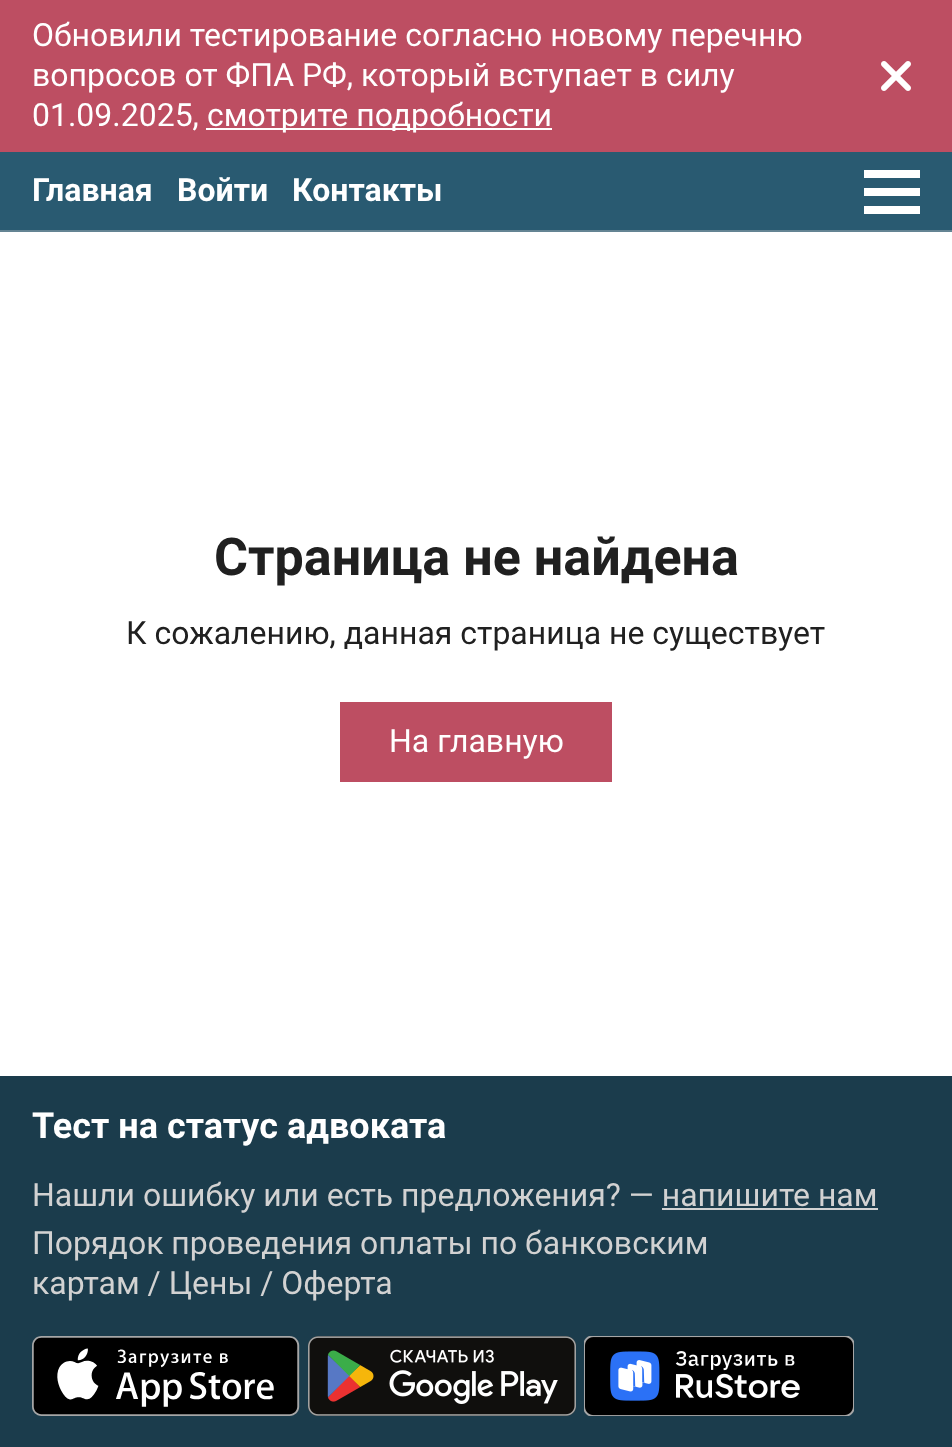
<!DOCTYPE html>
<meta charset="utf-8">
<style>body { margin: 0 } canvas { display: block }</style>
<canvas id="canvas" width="952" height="1447"></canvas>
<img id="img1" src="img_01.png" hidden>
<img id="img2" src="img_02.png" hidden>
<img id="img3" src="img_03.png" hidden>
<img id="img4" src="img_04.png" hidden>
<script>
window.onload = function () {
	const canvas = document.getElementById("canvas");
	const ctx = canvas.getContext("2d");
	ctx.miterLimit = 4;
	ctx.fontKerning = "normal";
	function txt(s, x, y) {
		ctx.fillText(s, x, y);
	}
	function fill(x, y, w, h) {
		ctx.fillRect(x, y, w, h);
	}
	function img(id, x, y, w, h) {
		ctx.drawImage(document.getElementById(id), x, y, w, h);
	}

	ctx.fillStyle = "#FFFFFF";
	fill(0, 0, 952, 1447);
	ctx.fillStyle = "#BD4E62";
	fill(0, 0, 952, 152);
	ctx.fillStyle = "#FFFFFF";
	fill(206, 128, 346, 2);
	img("img1", 881, 61, 30, 30);
	ctx.fillStyle = "#295A71";
	fill(0, 152, 952, 78);
	ctx.fillStyle = "#FFFFFF";
	fill(864, 170, 56, 8);
	fill(864, 188, 56, 8);
	fill(864, 206, 56, 8);
	ctx.fillStyle = "#648493";
	fill(0, 230, 952, 2);
	ctx.fillStyle = "#BD4E62";
	fill(340, 702, 272, 80);
	ctx.fillStyle = "#1B3C4C";
	fill(0, 1076, 952, 371);
	ctx.fillStyle = "#D2D2D2";
	fill(662, 1208, 216, 2);
	img("img2", 32, 1336, 268, 80);
	img("img3", 308, 1336, 268, 80);
	img("img4", 584, 1336, 270, 80);
	ctx.font = "32px Roboto";
	ctx.fillStyle = "#FFFFFF";
	txt("Обновили тестирование согласно новому перечню", 32, 46);
	txt("вопросов от ФПА РФ, который вступает в силу", 32, 86);
	txt("01.09.2025,", 32, 126);
	txt("смотрите подробности", 207, 126);
	ctx.font = "bold 32px Roboto";
	txt("Главная", 32, 201);
	txt("Войти", 177, 201);
	txt("Контакты", 292, 201);
	ctx.font = "bold 52px Roboto";
	ctx.fillStyle = "#202020";
	txt("Страница не найдена", 214, 575);
	ctx.font = "32px Roboto";
	txt("К сожалению, данная страница не существует", 126, 644);
	ctx.fillStyle = "#FFFFFF";
	txt("На главную", 389, 752);
	ctx.font = "bold 36px Roboto";
	txt("Тест на статус адвоката", 32, 1138);
	ctx.font = "32px Roboto";
	ctx.fillStyle = "#D2D2D2";
	txt("Нашли ошибку или есть предложения? — напишите нам", 32, 1206);
	txt("Порядок проведения оплаты по банковским", 32, 1254);
	txt("картам / Цены / Оферта", 32, 1294);
};
</script>
